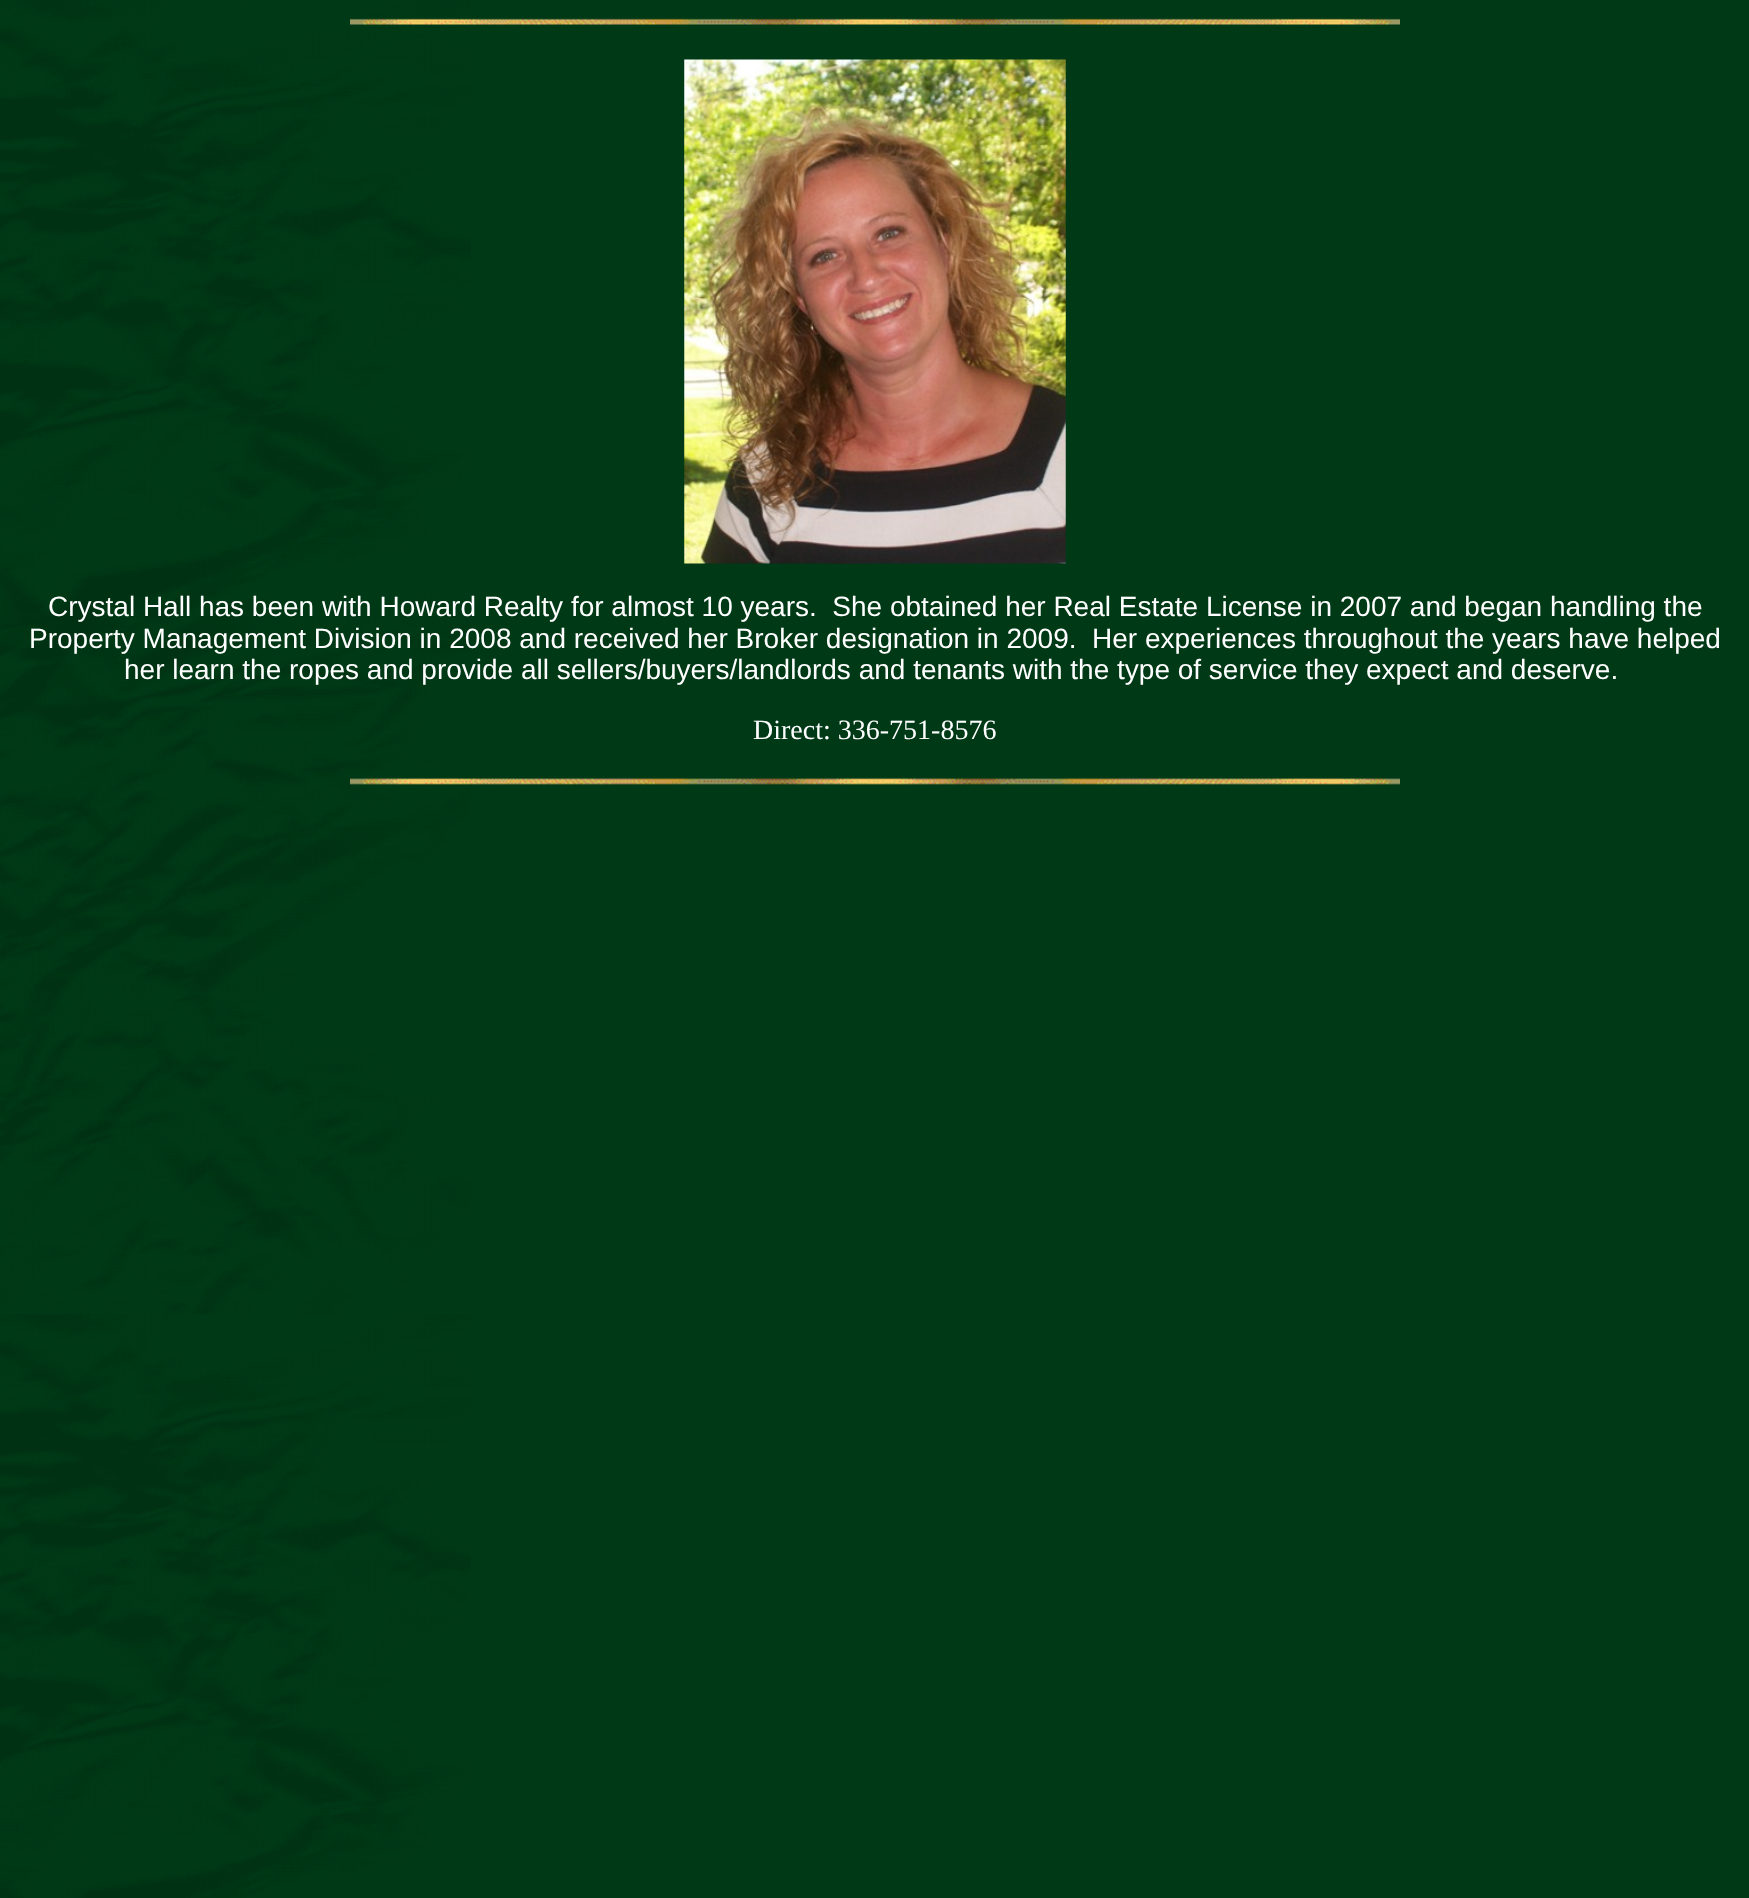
<!DOCTYPE html>
<meta charset="utf-8">
<style>body { margin: 0 } canvas { display: block }</style>
<canvas id="canvas" width="1749" height="1898"></canvas>
<img id="img1" src="img_01.png" hidden>
<img id="img2" src="img_02.png" hidden>
<img id="img3" src="img_03.png" hidden>
<img id="img4" src="img_04.png" hidden>
<script>
window.onload = function () {
	const canvas = document.getElementById("canvas");
	const ctx = canvas.getContext("2d");
	ctx.miterLimit = 4;
	ctx.fontKerning = "normal";
	function txt(s, x, y) {
		ctx.fillText(s, x, y);
	}
	function fill(x, y, w, h) {
		ctx.fillRect(x, y, w, h);
	}
	function img(id, x, y, w, h) {
		ctx.drawImage(document.getElementById(id), x, y, w, h);
	}

	ctx.fillStyle = "#003916";
	fill(0, 0, 1749, 1898);
	img("img1", 0, 0, 471, 1898);
	img("img2", 350, 18, 1050, 7);
	img("img3", 684, 59, 382, 505);
	img("img4", 350, 778, 1050, 7);
	ctx.font = "28px Liberation Sans";
	ctx.fillStyle = "#FFFFFF";
	txt("Crystal Hall has been with Howard Realty for almost 10 years.  She obtained her Real Estate License in 2007 and began handling the", 48, 616);
	txt("Property Management Division in 2008 and received her Broker designation in 2009.  Her experiences throughout the years have helped", 29, 648);
	txt("her learn the ropes and provide all sellers/buyers/landlords and tenants with the type of service they expect and deserve.", 124, 679);
	ctx.font = "28px Liberation Serif";
	txt("Direct: 336-751-8576", 753, 739);
};
</script>
